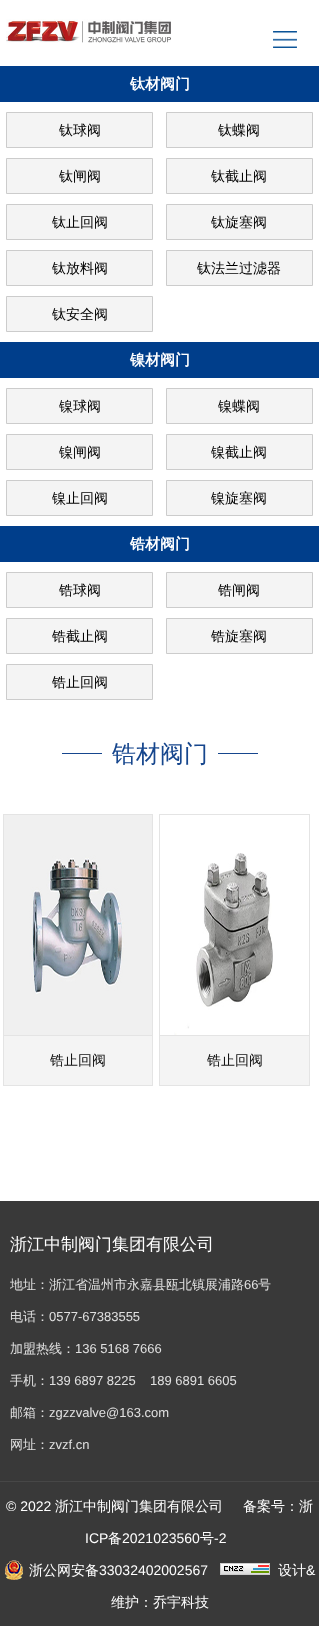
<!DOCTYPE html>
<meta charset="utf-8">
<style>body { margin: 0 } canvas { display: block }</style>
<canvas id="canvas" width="319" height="1647"></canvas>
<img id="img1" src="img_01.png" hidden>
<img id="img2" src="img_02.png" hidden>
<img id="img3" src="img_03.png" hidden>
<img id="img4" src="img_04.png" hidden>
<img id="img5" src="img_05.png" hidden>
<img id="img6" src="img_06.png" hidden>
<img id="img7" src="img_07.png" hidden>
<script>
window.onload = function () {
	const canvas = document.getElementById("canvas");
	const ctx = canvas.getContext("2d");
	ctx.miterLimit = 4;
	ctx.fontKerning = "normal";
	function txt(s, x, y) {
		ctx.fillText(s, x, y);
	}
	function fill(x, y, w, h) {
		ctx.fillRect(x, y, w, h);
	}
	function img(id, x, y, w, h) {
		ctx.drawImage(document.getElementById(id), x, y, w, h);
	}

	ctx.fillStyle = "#FFFFFF";
	fill(0, 0, 319, 1647);
	img("img1", 6, 19, 165, 24);
	img("img2", 273, 31, 24, 17);
	ctx.fillStyle = "#003E8B";
	fill(0, 66, 319, 36);
	ctx.fillStyle = "#F4F4F4";
	ctx.beginPath();
	ctx.rect(6.5, 112.5, 146, 35);
	ctx.fill();
	ctx.strokeStyle = "#CCCCCC";
	ctx.stroke();
	ctx.beginPath();
	ctx.rect(166.5, 112.5, 146, 35);
	ctx.fill();
	ctx.stroke();
	ctx.beginPath();
	ctx.rect(6.5, 158.5, 146, 35);
	ctx.fill();
	ctx.stroke();
	ctx.beginPath();
	ctx.rect(166.5, 158.5, 146, 35);
	ctx.fill();
	ctx.stroke();
	ctx.beginPath();
	ctx.rect(6.5, 204.5, 146, 35);
	ctx.fill();
	ctx.stroke();
	ctx.beginPath();
	ctx.rect(166.5, 204.5, 146, 35);
	ctx.fill();
	ctx.stroke();
	ctx.beginPath();
	ctx.rect(6.5, 250.5, 146, 35);
	ctx.fill();
	ctx.stroke();
	ctx.beginPath();
	ctx.rect(166.5, 250.5, 146, 35);
	ctx.fill();
	ctx.stroke();
	ctx.beginPath();
	ctx.rect(6.5, 296.5, 146, 35);
	ctx.fill();
	ctx.stroke();
	ctx.fillStyle = "#003E8B";
	fill(0, 342, 319, 36);
	ctx.fillStyle = "#F4F4F4";
	ctx.beginPath();
	ctx.rect(6.5, 388.5, 146, 35);
	ctx.fill();
	ctx.stroke();
	ctx.beginPath();
	ctx.rect(166.5, 388.5, 146, 35);
	ctx.fill();
	ctx.stroke();
	ctx.beginPath();
	ctx.rect(6.5, 434.5, 146, 35);
	ctx.fill();
	ctx.stroke();
	ctx.beginPath();
	ctx.rect(166.5, 434.5, 146, 35);
	ctx.fill();
	ctx.stroke();
	ctx.beginPath();
	ctx.rect(6.5, 480.5, 146, 35);
	ctx.fill();
	ctx.stroke();
	ctx.beginPath();
	ctx.rect(166.5, 480.5, 146, 35);
	ctx.fill();
	ctx.stroke();
	ctx.fillStyle = "#003E8B";
	fill(0, 526, 319, 36);
	ctx.fillStyle = "#F4F4F4";
	ctx.beginPath();
	ctx.rect(6.5, 572.5, 146, 35);
	ctx.fill();
	ctx.stroke();
	ctx.beginPath();
	ctx.rect(166.5, 572.5, 146, 35);
	ctx.fill();
	ctx.stroke();
	ctx.beginPath();
	ctx.rect(6.5, 618.5, 146, 35);
	ctx.fill();
	ctx.stroke();
	ctx.beginPath();
	ctx.rect(166.5, 618.5, 146, 35);
	ctx.fill();
	ctx.stroke();
	ctx.beginPath();
	ctx.rect(6.5, 664.5, 146, 35);
	ctx.fill();
	ctx.stroke();
	img("img3", 62, 753, 196, 1);
	ctx.strokeStyle = "#E4E4E4";
	ctx.strokeRect(3.5, 814.5, 149, 221);
	img("img4", 4, 815, 148, 220);
	fill(4, 1036, 148, 49);
	ctx.fillStyle = "#E4E4E4";
	fill(152, 1036, 1, 50);
	fill(3, 1085, 150, 1);
	fill(3, 1036, 1, 50);
	ctx.strokeRect(159.5, 814.5, 150, 221);
	img("img5", 174, 853, 99, 182);
	ctx.fillStyle = "#F4F4F4";
	fill(160, 1036, 149, 49);
	ctx.fillStyle = "#E4E4E4";
	fill(309, 1036, 1, 50);
	fill(159, 1085, 151, 1);
	fill(159, 1036, 1, 50);
	ctx.fillStyle = "#393939";
	fill(0, 1201, 319, 425);
	ctx.fillStyle = "#474747";
	fill(0, 1481, 319, 1);
	img("img6", 5, 1560, 18, 20);
	img("img7", 220, 1563, 50, 12);
	ctx.font = "bold 15px WenQuanYi Zen Hei";
	ctx.fillStyle = "#FFFFFF";
	txt("钛材阀门", 130, 89);
	ctx.font = "500 14px WenQuanYi Zen Hei";
	ctx.fillStyle = "#000000";
	txt("钛球阀", 59, 135);
	txt("钛蝶阀", 218, 135);
	txt("钛闸阀", 59, 181);
	txt("钛截止阀", 211, 181);
	txt("钛止回阀", 52, 227);
	txt("钛旋塞阀", 211, 227);
	txt("钛放料阀", 52, 273);
	txt("钛法兰过滤器", 197, 273);
	txt("钛安全阀", 52, 319);
	ctx.font = "bold 15px WenQuanYi Zen Hei";
	ctx.fillStyle = "#FFFFFF";
	txt("镍材阀门", 130, 365);
	ctx.font = "500 14px WenQuanYi Zen Hei";
	ctx.fillStyle = "#000000";
	txt("镍球阀", 59, 411);
	txt("镍蝶阀", 218, 411);
	txt("镍闸阀", 59, 457);
	txt("镍截止阀", 211, 457);
	txt("镍止回阀", 52, 503);
	txt("镍旋塞阀", 211, 503);
	ctx.font = "bold 15px WenQuanYi Zen Hei";
	ctx.fillStyle = "#FFFFFF";
	txt("锆材阀门", 130, 549);
	ctx.font = "500 14px WenQuanYi Zen Hei";
	ctx.fillStyle = "#000000";
	txt("锆球阀", 59, 595);
	txt("锆闸阀", 218, 595);
	txt("锆截止阀", 52, 641);
	txt("锆旋塞阀", 211, 641);
	txt("锆止回阀", 52, 687);
	ctx.font = "500 24px WenQuanYi Zen Hei";
	ctx.fillStyle = "#16468D";
	txt("锆材阀门", 112, 762);
	ctx.font = "500 14px WenQuanYi Zen Hei";
	ctx.fillStyle = "#111111";
	txt("锆止回阀", 50, 1065);
	txt("锆止回阀", 207, 1065);
	ctx.font = "500 17px WenQuanYi Zen Hei";
	ctx.fillStyle = "#FFFFFF";
	txt("浙江中制阀门集团有限公司", 10, 1250);
	ctx.font = "500 13px WenQuanYi Zen Hei";
	ctx.fillStyle = "#E0E0E0";
	txt("地址：浙江省温州市永嘉县瓯北镇展浦路", 10, 1289);
	ctx.font = "13px Liberation Sans";
	txt("66", 244, 1289);
	ctx.font = "500 13px WenQuanYi Zen Hei";
	txt("号", 258, 1289);
	txt("电话：", 10, 1321);
	ctx.font = "13px Liberation Sans";
	txt("0577-67383555", 49, 1321);
	ctx.font = "500 13px WenQuanYi Zen Hei";
	txt("加盟热线：", 10, 1353);
	ctx.font = "13px Liberation Sans";
	txt("136 5168 7666", 75, 1353);
	ctx.font = "500 13px WenQuanYi Zen Hei";
	txt("手机：", 10, 1385);
	ctx.font = "13px Liberation Sans";
	txt("139 6897 8225", 49, 1385);
	txt("189 6891 6605", 150, 1385);
	ctx.font = "500 13px WenQuanYi Zen Hei";
	txt("邮箱：", 10, 1417);
	ctx.font = "13px Liberation Sans";
	txt("zgzzvalve@163.com", 49, 1417);
	ctx.font = "500 13px WenQuanYi Zen Hei";
	txt("网址：", 10, 1449);
	ctx.font = "13px Liberation Sans";
	txt("zvzf.cn", 49, 1449);
	ctx.font = "14px Liberation Sans";
	ctx.fillStyle = "#FFFFFF";
	txt("© 2022", 6, 1511);
	ctx.font = "500 14px WenQuanYi Zen Hei";
	txt("浙江中制阀门集团有限公司", 55, 1511);
	txt("备案号：浙", 243, 1511);
	ctx.font = "14px Liberation Sans";
	txt("ICP", 85, 1543);
	ctx.font = "500 14px WenQuanYi Zen Hei";
	txt("备", 108, 1543);
	ctx.font = "14px Liberation Sans";
	txt("2021023560", 122, 1543);
	ctx.font = "500 14px WenQuanYi Zen Hei";
	txt("号", 200, 1543);
	ctx.font = "14px Liberation Sans";
	txt("-2", 214, 1543);
	ctx.font = "500 14px WenQuanYi Zen Hei";
	txt("浙公网安备", 29, 1575);
	ctx.font = "14px Liberation Sans";
	txt("33032402002567", 99, 1575);
	ctx.font = "500 14px WenQuanYi Zen Hei";
	txt("设计", 278, 1575);
	ctx.font = "14px Liberation Sans";
	txt("&", 306, 1575);
	ctx.font = "500 14px WenQuanYi Zen Hei";
	txt("维护：乔宇科技", 111, 1607);
};
</script>
